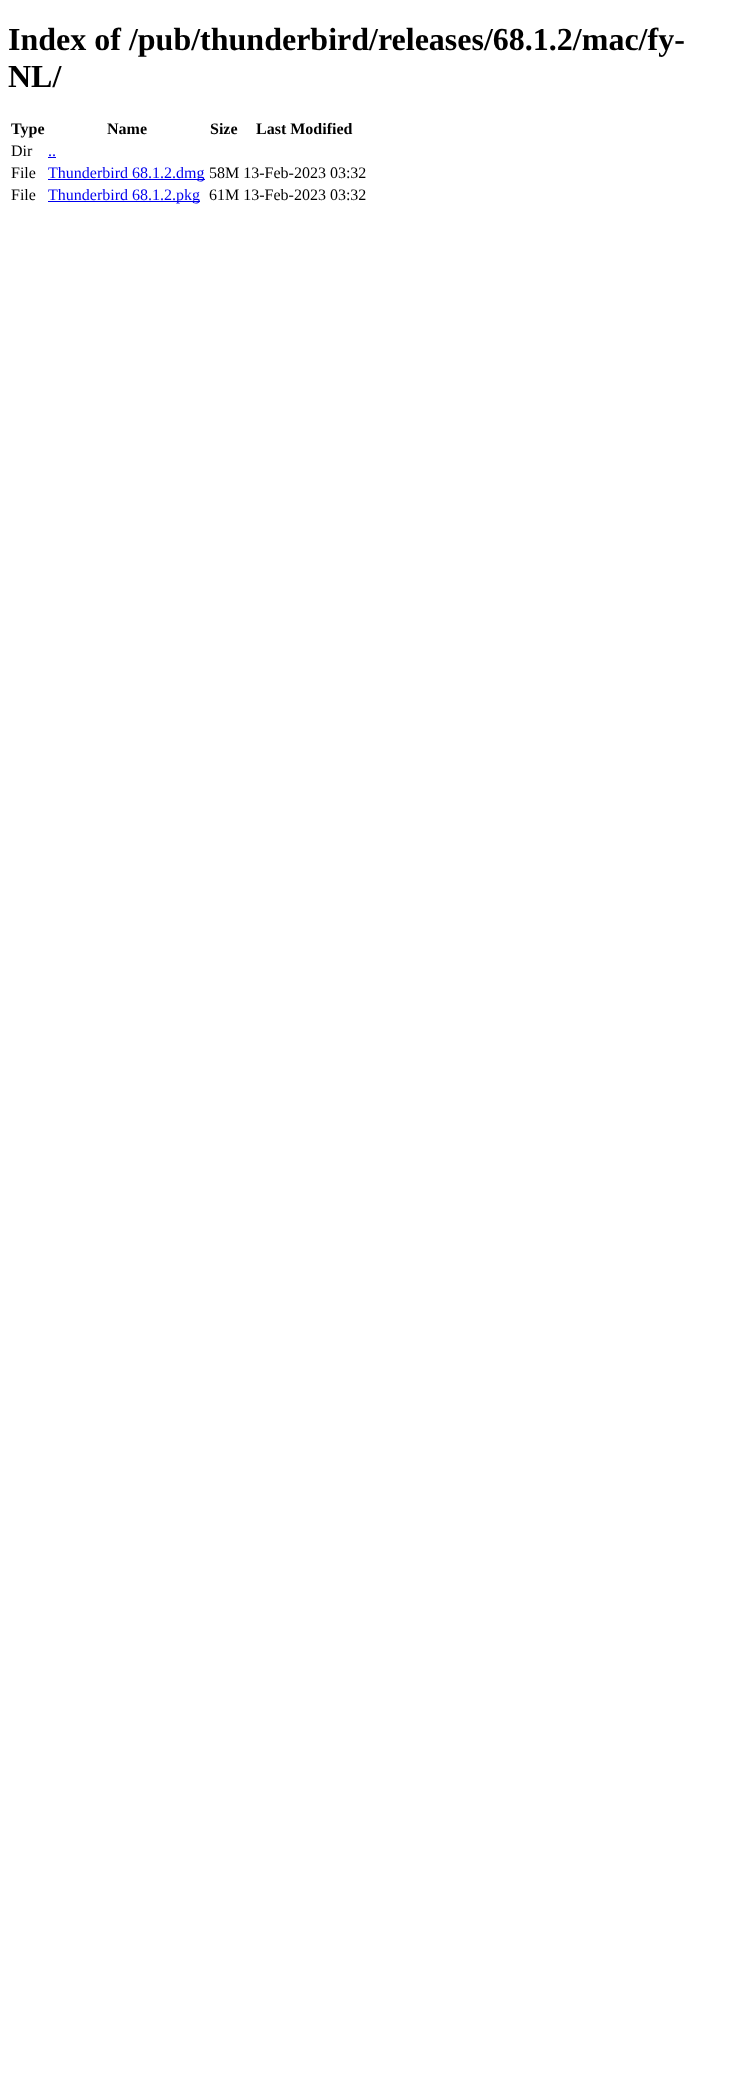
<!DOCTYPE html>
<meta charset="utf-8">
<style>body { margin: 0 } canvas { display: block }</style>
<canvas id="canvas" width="739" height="2100"></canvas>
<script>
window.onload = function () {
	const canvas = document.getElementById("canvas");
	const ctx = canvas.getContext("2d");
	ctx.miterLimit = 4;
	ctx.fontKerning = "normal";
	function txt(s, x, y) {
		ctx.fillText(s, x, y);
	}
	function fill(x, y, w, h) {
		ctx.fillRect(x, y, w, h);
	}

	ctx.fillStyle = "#FFFFFF";
	fill(0, 0, 739, 2100);
	ctx.fillStyle = "#0000EE";
	fill(48, 157, 8, 1);
	fill(48, 179, 157, 1);
	fill(48, 201, 152, 1);
	ctx.font = "bold 32px Liberation Serif";
	ctx.fillStyle = "#000000";
	txt("Index of /pub/thunderbird/releases/68.1.2/mac/fy-", 8, 50);
	txt("NL/", 8, 87);
	ctx.font = "bold 16px Liberation Serif";
	txt("Type", 11, 134);
	txt("Name", 107, 134);
	txt("Size", 210, 134);
	txt("Last Modified", 256, 134);
	ctx.font = "16px Liberation Serif";
	txt("Dir", 11, 156);
	ctx.fillStyle = "#0000EE";
	txt("..", 48, 156);
	ctx.fillStyle = "#000000";
	txt("File", 11, 178);
	ctx.fillStyle = "#0000EE";
	txt("Thunderbird 68.1.2.dmg", 48, 178);
	ctx.fillStyle = "#000000";
	txt("58M 13-Feb-2023 03:32", 209, 178);
	txt("File", 11, 200);
	ctx.fillStyle = "#0000EE";
	txt("Thunderbird 68.1.2.pkg", 48, 200);
	ctx.fillStyle = "#000000";
	txt("61M 13-Feb-2023 03:32", 209, 200);
};
</script>
